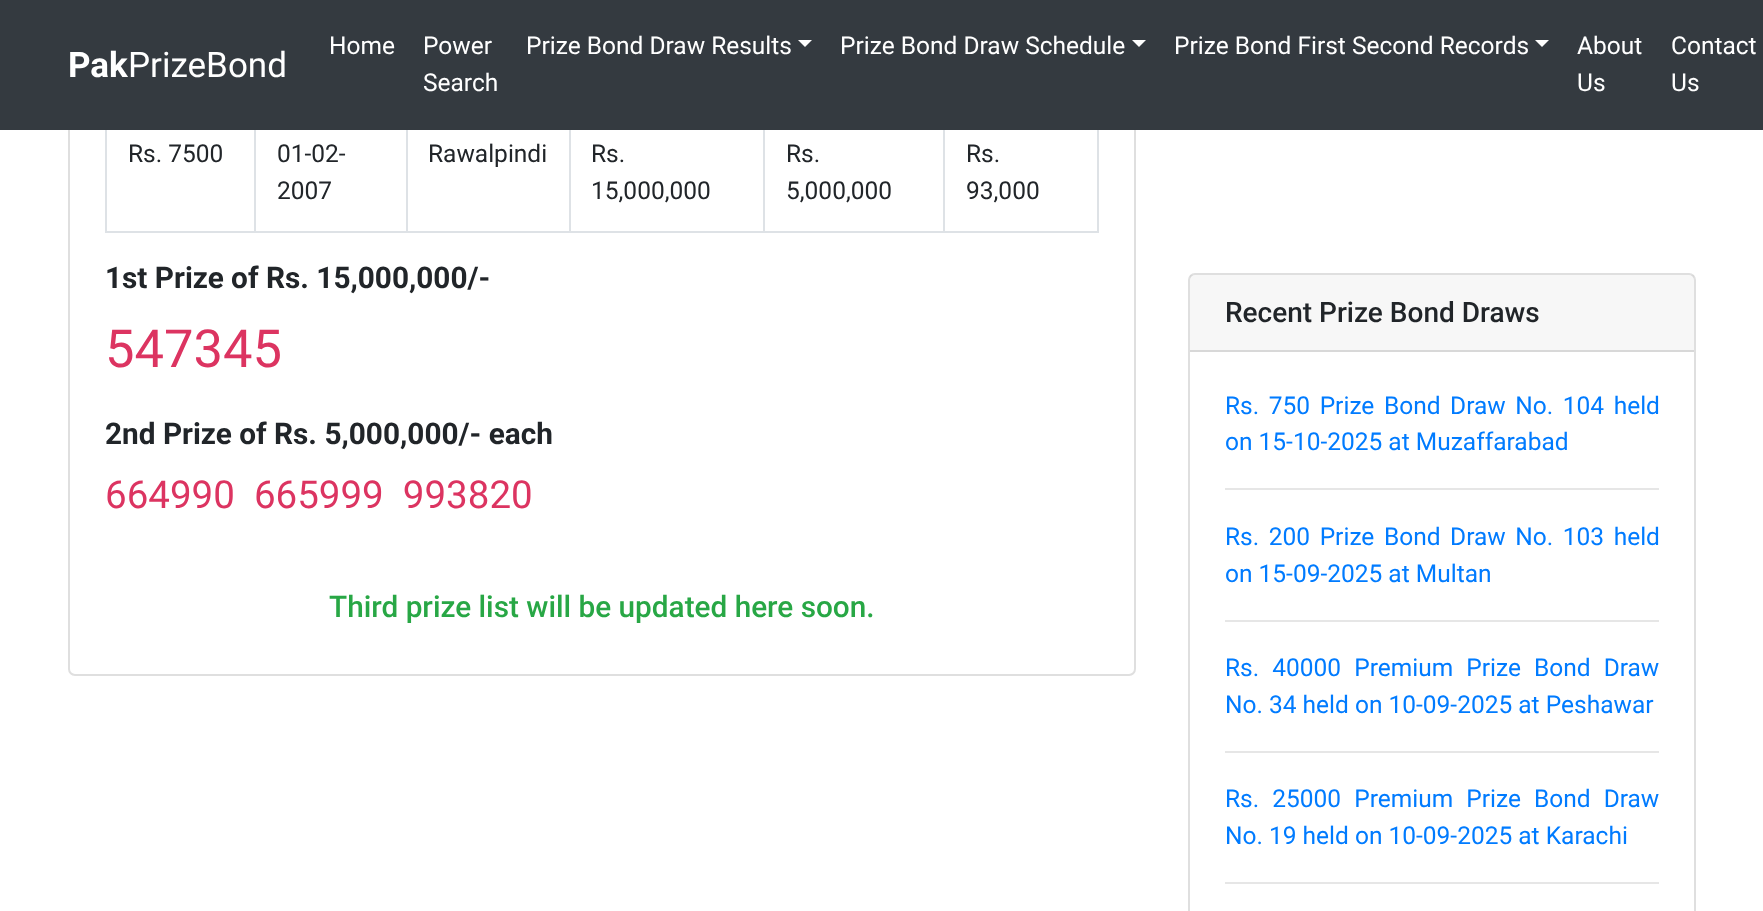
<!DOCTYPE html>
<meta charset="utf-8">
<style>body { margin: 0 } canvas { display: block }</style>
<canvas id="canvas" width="1763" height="911"></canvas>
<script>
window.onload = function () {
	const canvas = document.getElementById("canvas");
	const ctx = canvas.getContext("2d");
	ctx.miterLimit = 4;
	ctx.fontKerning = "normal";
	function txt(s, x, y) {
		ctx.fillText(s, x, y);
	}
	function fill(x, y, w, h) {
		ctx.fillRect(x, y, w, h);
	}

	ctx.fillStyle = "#FFFFFF";
	fill(0, 0, 1763, 911);
	ctx.beginPath();
	ctx.roundRect(69, -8, 1066, 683, 6);
	ctx.strokeStyle = "#DFDFDF";
	ctx.lineWidth = 2;
	ctx.stroke();
	ctx.fillStyle = "#343A40";
	fill(0, 0, 1763, 130);
	ctx.fillStyle = "#FFFFFF";
	ctx.beginPath();
	ctx.moveTo(798, 40);
	ctx.lineTo(812, 40);
	ctx.lineTo(805, 47);
	ctx.closePath();
	ctx.fill();
	ctx.beginPath();
	ctx.moveTo(1132, 40);
	ctx.lineTo(1146, 40);
	ctx.lineTo(1139, 47);
	ctx.closePath();
	ctx.fill();
	ctx.beginPath();
	ctx.moveTo(1535, 40);
	ctx.lineTo(1549, 40);
	ctx.lineTo(1542, 47);
	ctx.closePath();
	ctx.fill();
	ctx.fillStyle = "#DEE2E6";
	fill(1097, 130, 2, 103);
	fill(943, 231, 156, 2);
	fill(943, 130, 2, 103);
	fill(763, 231, 182, 2);
	fill(763, 130, 2, 103);
	fill(569, 231, 196, 2);
	fill(569, 130, 2, 103);
	fill(406, 231, 165, 2);
	fill(406, 130, 2, 103);
	fill(254, 231, 154, 2);
	fill(254, 130, 2, 103);
	fill(105, 231, 151, 2);
	fill(105, 130, 2, 103);
	ctx.beginPath();
	ctx.roundRect(1189, 274, 506, 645, 6);
	ctx.stroke();
	ctx.fillStyle = "rgba(0, 0, 0, 0.03)";
	fill(1190, 275, 504, 75);
	ctx.fillStyle = "#D8D8D8";
	fill(1190, 350, 504, 2);
	ctx.fillStyle = "#E6E6E6";
	fill(1225, 488, 434, 2);
	fill(1225, 620, 434, 2);
	fill(1225, 751, 434, 2);
	fill(1225, 882, 434, 2);
	ctx.font = "bold 35px Roboto";
	ctx.fillStyle = "#FFFFFF";
	txt("Pak", 68, 77);
	ctx.font = "35px Roboto";
	txt("PrizeBond", 128, 77);
	ctx.font = "24.5px Roboto";
	txt("Home", 329, 54);
	txt("Power", 423, 54);
	txt("Search", 423, 91);
	txt("Prize Bond Draw Results", 526, 54);
	txt("Prize Bond Draw Schedule", 840, 54);
	txt("Prize Bond First Second Records", 1174, 54);
	txt("About", 1577, 54);
	txt("Us", 1577, 91);
	txt("Contact", 1671, 54);
	txt("Us", 1671, 91);
	ctx.fillStyle = "#212529";
	txt("Rs. 7500", 128, 162);
	txt("01-02-", 277, 162);
	txt("2007", 277, 199);
	txt("Rawalpindi", 428, 162);
	txt("Rs.", 591, 162);
	txt("15,000,000", 591, 199);
	txt("Rs.", 786, 162);
	txt("5,000,000", 786, 199);
	txt("Rs.", 966, 162);
	txt("93,000", 966, 199);
	ctx.font = "bold 29.75px Roboto";
	txt("1st Prize of Rs. 15,000,000/-", 105, 288);
	ctx.font = "52.5px Roboto";
	ctx.fillStyle = "#DC3461";
	txt("547345", 105, 367);
	ctx.font = "bold 29.75px Roboto";
	ctx.fillStyle = "#212529";
	txt("2nd Prize of Rs. 5,000,000/- each", 105, 444);
	ctx.font = "38.5px Roboto";
	ctx.fillStyle = "#DC3461";
	txt("664990  665999  993820", 105, 508);
	ctx.font = "500 29.75px Roboto";
	ctx.fillStyle = "#28A745";
	txt("Third prize list will be updated here soon.", 329, 617);
	ctx.font = "500 28px Roboto";
	ctx.fillStyle = "#212529";
	txt("Recent Prize Bond Draws", 1225, 322);
	ctx.wordSpacing = "3.5px";
	ctx.font = "24.5px Roboto";
	ctx.fillStyle = "#007BFF";
	txt("Rs. 750 Prize Bond Draw No. 104 held", 1225, 414);
	ctx.wordSpacing = "0px";
	txt("on 15-10-2025 at Muzaffarabad", 1225, 450);
	ctx.wordSpacing = "3.5px";
	txt("Rs. 200 Prize Bond Draw No. 103 held", 1225, 545);
	ctx.wordSpacing = "0px";
	txt("on 15-09-2025 at Multan", 1225, 582);
	ctx.wordSpacing = "7px";
	txt("Rs. 40000 Premium Prize Bond Draw", 1225, 676);
	ctx.wordSpacing = "0px";
	txt("No. 34 held on 10-09-2025 at Peshawar", 1225, 713);
	ctx.wordSpacing = "7px";
	txt("Rs. 25000 Premium Prize Bond Draw", 1225, 807);
	ctx.wordSpacing = "0px";
	txt("No. 19 held on 10-09-2025 at Karachi", 1225, 844);
};
</script>
